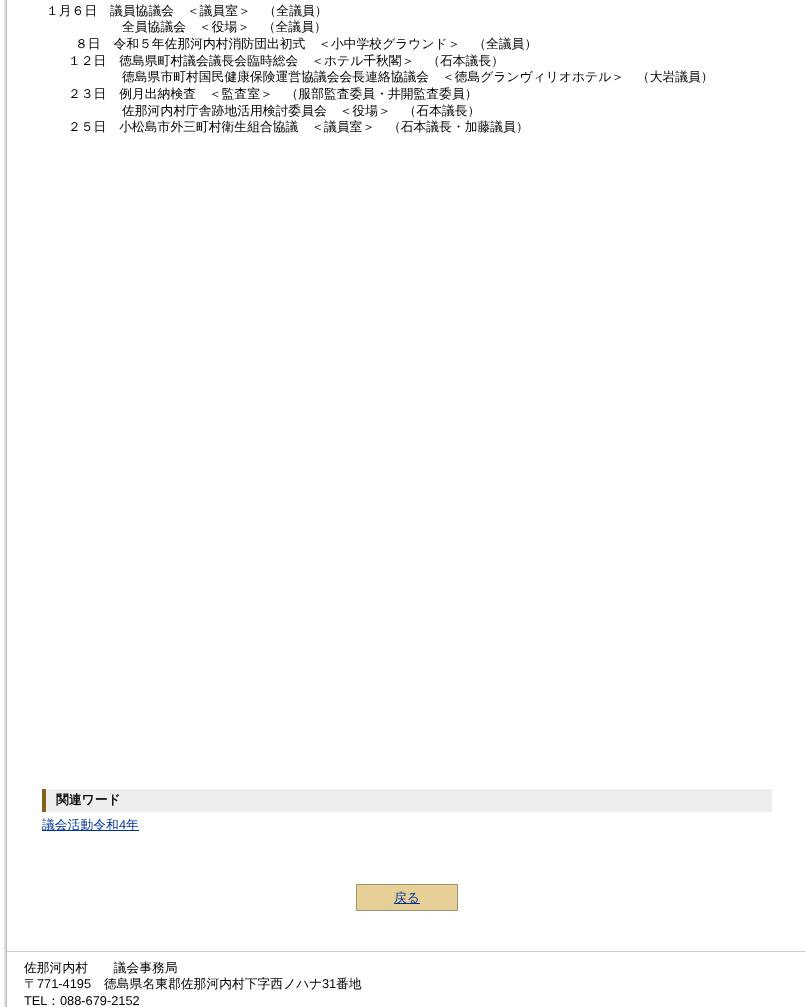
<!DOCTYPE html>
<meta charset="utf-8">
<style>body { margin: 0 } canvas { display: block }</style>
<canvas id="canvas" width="806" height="1007"></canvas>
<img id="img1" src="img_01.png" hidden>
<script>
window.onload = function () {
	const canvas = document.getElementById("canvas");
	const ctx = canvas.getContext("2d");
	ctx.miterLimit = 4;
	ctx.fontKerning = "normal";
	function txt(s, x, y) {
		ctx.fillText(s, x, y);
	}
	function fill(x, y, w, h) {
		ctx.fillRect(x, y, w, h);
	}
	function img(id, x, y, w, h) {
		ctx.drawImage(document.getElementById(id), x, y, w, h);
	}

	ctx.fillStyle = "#FFFFFF";
	fill(0, 0, 806, 1007);
	img("img1", 3, 0, 4, 1007);
	ctx.fillStyle = "#EEEEEE";
	fill(46, 789, 726, 23);
	ctx.fillStyle = "#82641E";
	fill(42, 789, 4, 23);
	ctx.fillStyle = "#003399";
	fill(42, 830, 97, 1);
	ctx.fillStyle = "#E6D098";
	ctx.beginPath();
	ctx.rect(356.5, 884.5, 101, 26);
	ctx.fill();
	ctx.strokeStyle = "#9F9275";
	ctx.stroke();
	ctx.fillStyle = "#003399";
	fill(394, 903, 26, 1);
	ctx.fillStyle = "#CCCCCC";
	fill(7, 951, 799, 1);
	ctx.font = "500 12.8px WenQuanYi Zen Hei";
	ctx.fillStyle = "#000000";
	txt("１月６日　議員協議会　＜議員室＞　（全議員）", 46, 15);
	txt("全員協議会　＜役場＞　（全議員）", 122, 31);
	txt("８日　令和５年佐那河内村消防団出初式　＜小中学校グラウンド＞　（全議員）", 75, 48);
	txt("１２日　徳島県町村議会議長会臨時総会　＜ホテル千秋閣＞　（石本議長）", 68, 65);
	txt("徳島県市町村国民健康保険運営協議会会長連絡協議会　＜徳島グランヴィリオホテル＞　（大岩議員）", 122, 81);
	txt("２３日　例月出納検査　＜監査室＞　（服部監査委員・井開監査委員）", 68, 98);
	txt("佐那河内村庁舎跡地活用検討委員会　＜役場＞　（石本議長）", 122, 115);
	txt("２５日　小松島市外三町村衛生組合協議　＜議員室＞　（石本議長・加藤議員）", 68, 131);
	ctx.font = "bold 12.8px WenQuanYi Zen Hei";
	txt("関連ワード", 56, 804);
	ctx.font = "500 12.8px WenQuanYi Zen Hei";
	ctx.fillStyle = "#003399";
	txt("議会活動令和", 42, 829);
	ctx.font = "12.8px Liberation Sans";
	txt("4", 119, 829);
	ctx.font = "500 12.8px WenQuanYi Zen Hei";
	txt("年", 126, 829);
	txt("戻る", 394, 902);
	ctx.fillStyle = "#000000";
	txt("佐那河内村　　議会事務局", 24, 972);
	txt("〒", 24, 988);
	ctx.font = "12.8px Liberation Sans";
	txt("771-4195", 37, 988);
	ctx.font = "500 12.8px WenQuanYi Zen Hei";
	txt("徳島県名東郡佐那河内村下字西ノハナ", 104, 988);
	ctx.font = "12.8px Liberation Sans";
	txt("31", 322, 988);
	ctx.font = "500 12.8px WenQuanYi Zen Hei";
	txt("番地", 336, 988);
	ctx.font = "12.8px Liberation Sans";
	txt("TEL", 24, 1005);
	ctx.font = "500 12.8px WenQuanYi Zen Hei";
	txt("：", 47, 1005);
	ctx.font = "12.8px Liberation Sans";
	txt("088-679-2152", 60, 1005);
};
</script>
